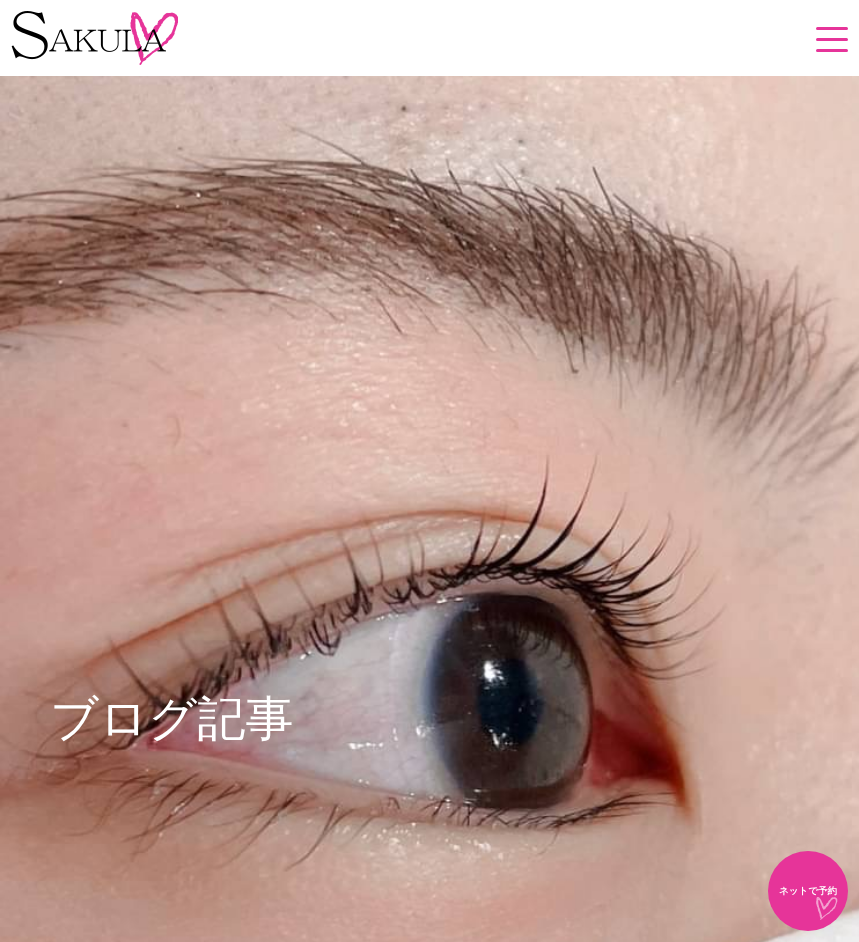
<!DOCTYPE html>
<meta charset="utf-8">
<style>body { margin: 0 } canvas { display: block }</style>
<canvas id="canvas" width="859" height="942"></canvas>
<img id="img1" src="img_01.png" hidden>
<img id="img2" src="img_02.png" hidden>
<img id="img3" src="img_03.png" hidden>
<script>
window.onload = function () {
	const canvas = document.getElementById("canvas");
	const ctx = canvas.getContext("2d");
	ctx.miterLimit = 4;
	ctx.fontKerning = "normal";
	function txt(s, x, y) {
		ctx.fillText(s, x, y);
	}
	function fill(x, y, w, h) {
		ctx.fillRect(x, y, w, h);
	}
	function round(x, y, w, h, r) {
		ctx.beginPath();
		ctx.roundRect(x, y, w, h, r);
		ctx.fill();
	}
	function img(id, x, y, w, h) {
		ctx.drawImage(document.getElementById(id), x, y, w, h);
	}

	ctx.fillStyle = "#FFFFFF";
	fill(0, 0, 859, 942);
	img("img1", 0, 76, 859, 866);
	img("img2", 11, 11, 167, 54);
	ctx.fillStyle = "#E63499";
	round(816, 27, 32, 3, 1.5);
	round(816, 38, 32, 3, 1.5);
	round(816, 49, 32, 3, 1.5);
	ctx.beginPath();
	ctx.arc(808, 891, 40, 0, Math.PI * 2);
	ctx.fill();
	img("img3", 816, 897, 22, 23);
	ctx.font = "500 48px WenQuanYi Zen Hei";
	ctx.fillStyle = "#FFFFFF";
	txt("ブログ記事", 50, 735);
	ctx.font = "bold 9.5px WenQuanYi Zen Hei";
	txt("ネットで予約", 779, 894);
};
</script>
